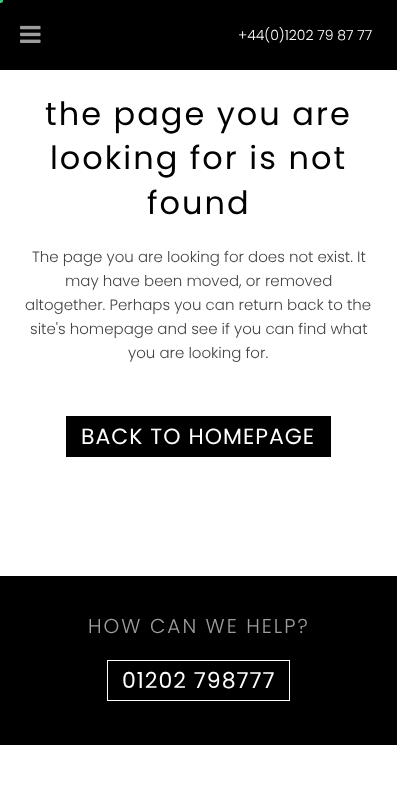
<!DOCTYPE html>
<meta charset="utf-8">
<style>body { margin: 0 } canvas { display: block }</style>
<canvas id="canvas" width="397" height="804"></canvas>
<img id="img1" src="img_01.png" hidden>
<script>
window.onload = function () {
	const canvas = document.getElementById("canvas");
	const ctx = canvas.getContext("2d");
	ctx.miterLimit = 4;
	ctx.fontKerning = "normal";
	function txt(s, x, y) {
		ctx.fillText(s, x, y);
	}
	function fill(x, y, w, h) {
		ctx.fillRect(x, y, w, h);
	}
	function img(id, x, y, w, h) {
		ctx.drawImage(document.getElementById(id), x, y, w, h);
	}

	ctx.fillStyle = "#FFFFFF";
	fill(0, 0, 397, 804);
	ctx.fillStyle = "#000000";
	fill(0, 0, 397, 70);
	ctx.fillStyle = "#28D080";
	ctx.beginPath();
	ctx.arc(0.5, 0.5, 2.5, 0, Math.PI * 2);
	ctx.fill();
	img("img1", 20, 25, 21, 18);
	ctx.fillStyle = "#000000";
	fill(66, 416, 265, 41);
	fill(0, 576, 397, 169);
	ctx.strokeStyle = "#FFFFFF";
	ctx.strokeRect(107.5, 660.5, 182, 40);
	ctx.font = "300 14px Poppins";
	ctx.fillStyle = "#FFFFFF";
	txt("+44(0)1202 79 87 77", 238, 40);
	ctx.letterSpacing = "2px";
	ctx.font = "32px Poppins";
	ctx.fillStyle = "#000000";
	txt("the page you are", 45, 125);
	txt("looking for is not", 50, 169);
	txt("found", 147, 214);
	ctx.letterSpacing = "0px";
	ctx.font = "300 15px Poppins";
	ctx.fillStyle = "#444547";
	txt("The page you are looking for does not exist. It", 32, 262);
	txt("may have been moved, or removed", 65, 286);
	txt("altogether. Perhaps you can return back to the", 25, 310);
	txt("site's homepage and see if you can find what", 30, 334);
	txt("you are looking for.", 128, 358);
	ctx.letterSpacing = "1px";
	ctx.font = "22px Poppins";
	ctx.fillStyle = "#FFFFFF";
	txt("BACK TO HOMEPAGE", 81, 444);
	ctx.letterSpacing = "2px";
	ctx.font = "300 20px Poppins";
	ctx.fillStyle = "#9C9D9D";
	txt("HOW CAN WE HELP?", 88, 633);
	ctx.letterSpacing = "1px";
	ctx.font = "22px Poppins";
	ctx.fillStyle = "#FFFFFF";
	txt("01202 798777", 122, 688);
};
</script>
